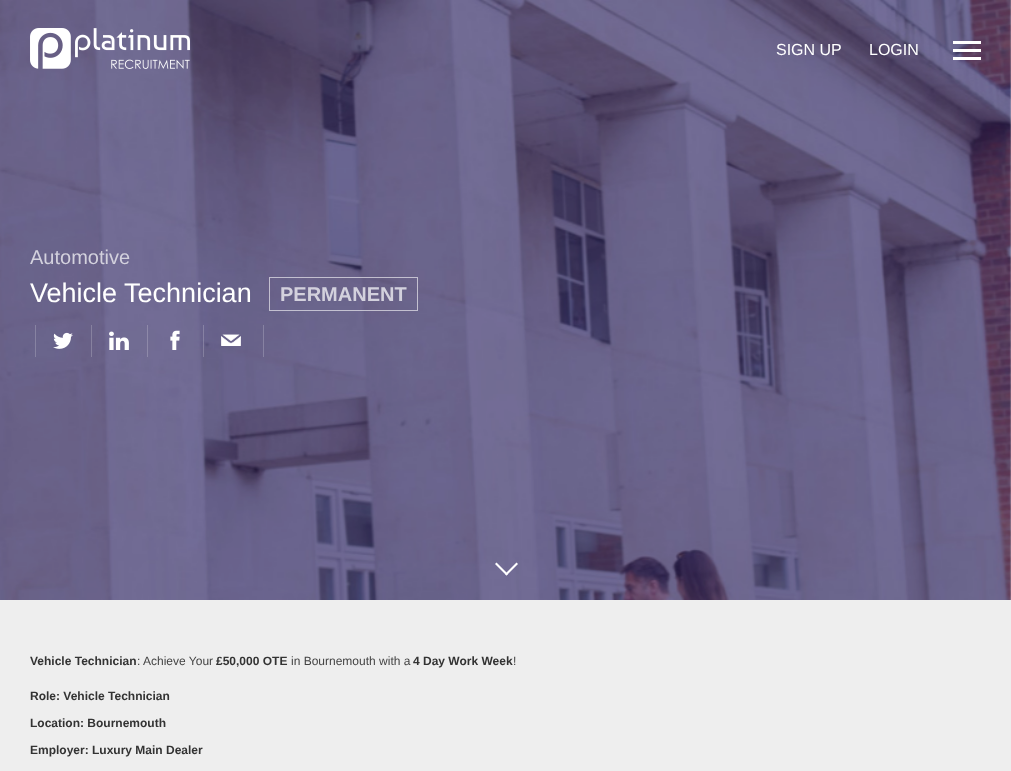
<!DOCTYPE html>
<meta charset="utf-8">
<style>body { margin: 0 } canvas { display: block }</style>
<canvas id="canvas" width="1011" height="771"></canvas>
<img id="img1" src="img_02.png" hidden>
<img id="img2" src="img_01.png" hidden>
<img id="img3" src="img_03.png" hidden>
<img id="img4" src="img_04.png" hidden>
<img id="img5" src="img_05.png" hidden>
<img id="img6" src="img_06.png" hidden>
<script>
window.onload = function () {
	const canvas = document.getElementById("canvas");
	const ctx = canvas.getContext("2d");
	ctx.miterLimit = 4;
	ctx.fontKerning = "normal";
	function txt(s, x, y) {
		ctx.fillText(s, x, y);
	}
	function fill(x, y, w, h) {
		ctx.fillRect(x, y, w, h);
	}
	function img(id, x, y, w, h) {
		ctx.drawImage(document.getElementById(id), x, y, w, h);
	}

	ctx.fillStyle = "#FFFFFF";
	fill(0, 0, 1011, 771);
	img("img1", 0, 0, 1011, 600);
	img("img2", 30, 28, 160, 41);
	fill(953, 41, 28, 3);
	fill(953, 49, 28, 3);
	fill(953, 57, 28, 3);
	ctx.strokeStyle = "rgba(255, 255, 255, 0.6)";
	ctx.strokeRect(269.5, 277.5, 148, 33);
	ctx.fillStyle = "#8783A2";
	fill(35, 325, 1, 32);
	img("img3", 53, 332, 20, 17);
	ctx.fillStyle = "#87819F";
	fill(91, 325, 1, 32);
	img("img4", 109, 331, 20, 19);
	ctx.fillStyle = "#8E89A9";
	fill(147, 325, 1, 32);
	img("img5", 170, 330, 10, 20);
	ctx.fillStyle = "rgba(255, 255, 255, 0.2)";
	fill(203, 325, 1, 32);
	img("img6", 221, 334, 20, 12);
	ctx.fillStyle = "#8782A2";
	fill(263, 325, 1, 32);
	ctx.fillStyle = "#FFFFFF";
	ctx.beginPath();
	ctx.moveTo(516.5, 562.5);
	ctx.lineTo(518, 564);
	ctx.lineTo(506.5, 575.5);
	ctx.lineTo(505, 574);
	ctx.closePath();
	ctx.fill();
	ctx.beginPath();
	ctx.moveTo(496.5, 562.5);
	ctx.lineTo(508, 574);
	ctx.lineTo(506.5, 575.5);
	ctx.lineTo(495, 564);
	ctx.closePath();
	ctx.fill();
	ctx.fillStyle = "#EEEEEE";
	fill(0, 600, 1011, 171);
	ctx.font = "16px Liberation Sans";
	ctx.fillStyle = "#FFFFFF";
	txt("SIGN UP", 776, 55);
	txt("LOGIN", 869, 55);
	ctx.font = "20px Liberation Sans";
	ctx.fillStyle = "#D3D1DD";
	txt("Automotive", 30, 264);
	ctx.font = "27px Liberation Sans";
	ctx.fillStyle = "#FFFFFF";
	txt("Vehicle Technician", 30, 302);
	ctx.font = "bold 20px Liberation Sans";
	ctx.fillStyle = "#D3D1DD";
	txt("PERMANENT", 280, 301);
	ctx.font = "bold 12px Liberation Sans";
	ctx.fillStyle = "#333333";
	txt("Vehicle Technician", 30, 665);
	ctx.font = "12px Liberation Sans";
	ctx.fillStyle = "#444444";
	txt(": Achieve Your", 137, 665);
	ctx.font = "bold 12px Liberation Sans";
	ctx.fillStyle = "#333333";
	txt("£50,000 OTE", 216, 665);
	ctx.font = "12px Liberation Sans";
	ctx.fillStyle = "#444444";
	txt("in Bournemouth with a", 291, 665);
	ctx.font = "bold 12px Liberation Sans";
	ctx.fillStyle = "#333333";
	txt("4 Day Work Week", 413, 665);
	ctx.font = "12px Liberation Sans";
	ctx.fillStyle = "#444444";
	txt("!", 513, 665);
	ctx.font = "bold 12px Liberation Sans";
	ctx.fillStyle = "#333333";
	txt("Role: Vehicle Technician", 30, 700);
	txt("Location: Bournemouth", 30, 727);
	txt("Employer: Luxury Main Dealer", 30, 754);
};
</script>
